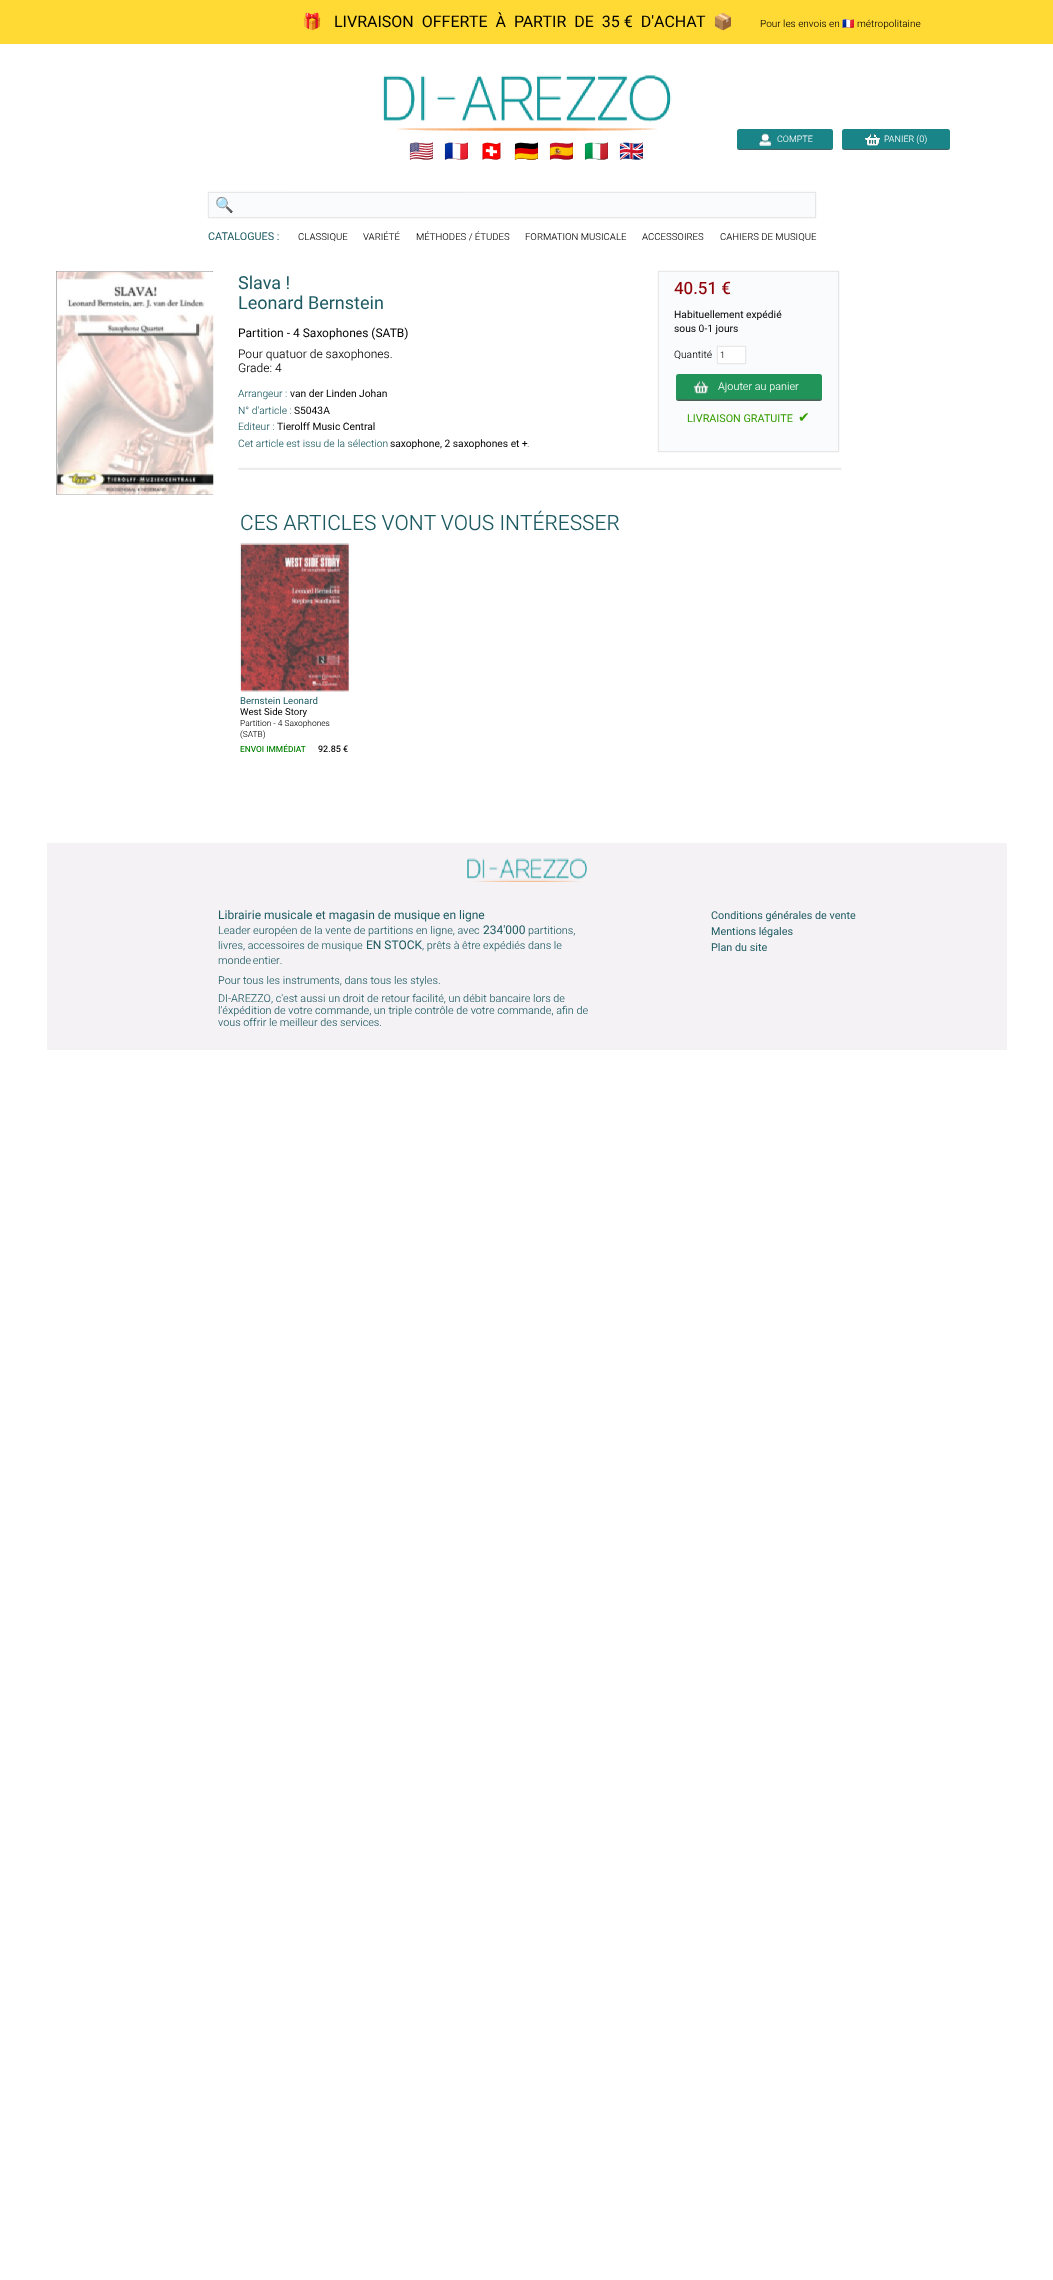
<!DOCTYPE html>
<meta charset="utf-8">
<style>body { margin: 0 } canvas { display: block }</style>
<canvas id="canvas" width="1053" height="2280"></canvas>
<img id="img1" src="img_01.png" hidden>
<img id="img2" src="img_02.png" hidden>
<img id="img3" src="img_03.png" hidden>
<img id="img4" src="img_04.png" hidden>
<img id="img5" src="img_05.png" hidden>
<img id="img6" src="img_06.png" hidden>
<img id="img7" src="img_07.png" hidden>
<img id="img8" src="img_08.png" hidden>
<script>
window.onload = function () {
	const canvas = document.getElementById("canvas");
	const ctx = canvas.getContext("2d");
	ctx.miterLimit = 4;
	ctx.fontKerning = "normal";
	function txt(s, x, y) {
		ctx.fillText(s, x, y);
	}
	function fill(x, y, w, h) {
		ctx.fillRect(x, y, w, h);
	}
	function round(x, y, w, h, r) {
		ctx.beginPath();
		ctx.roundRect(x, y, w, h, r);
		ctx.fill();
	}
	function img(id, x, y, w, h) {
		ctx.drawImage(document.getElementById(id), x, y, w, h);
	}
	let gradient;

	ctx.fillStyle = "#FFFFFF";
	fill(0, 0, 1053, 2280);
	ctx.fillStyle = "#FFDA35";
	fill(0, 0, 1053, 44);
	img("img1", 382, 75, 290, 56);
	gradient = ctx.createLinearGradient(785, 129, 785, 150);
	gradient.addColorStop(0.92, "#198589");
	gradient.addColorStop(1, "#555555");
	ctx.fillStyle = gradient;
	round(737, 129, 96, 21, 2.5);
	img("img2", 759, 133, 13, 13);
	gradient = ctx.createLinearGradient(896, 129, 896, 150);
	gradient.addColorStop(0.92, "#198589");
	gradient.addColorStop(1, "#555555");
	ctx.fillStyle = gradient;
	round(842, 129, 108, 21, 2.5);
	img("img3", 865, 134, 15, 12);
	ctx.fillStyle = "#FAFBFC";
	ctx.beginPath();
	ctx.rect(208.3, 192.3, 607.4, 25.4);
	ctx.fill();
	ctx.strokeStyle = "#D1D1D1";
	ctx.lineWidth = 0.6;
	ctx.stroke();
	ctx.strokeStyle = "#888888";
	ctx.strokeRect(56.3, 271.3, 156.4, 223.4);
	img("img4", 57, 271, 157, 224);
	ctx.beginPath();
	ctx.rect(658.3, 271.3, 180.4, 180.4);
	ctx.fill();
	ctx.strokeStyle = "#D1D1D1";
	ctx.stroke();
	ctx.fillStyle = "#FFFFFF";
	ctx.beginPath();
	ctx.rect(717.3, 346.3, 28.4, 17.4);
	ctx.fill();
	ctx.stroke();
	gradient = ctx.createLinearGradient(749, 374, 749, 401);
	gradient.addColorStop(0.9, "#219459");
	gradient.addColorStop(1, "#555555");
	ctx.fillStyle = gradient;
	round(676, 374, 146, 27, 2.5);
	img("img5", 693, 381, 16, 13);
	img("img6", 238, 467, 604, 3);
	ctx.beginPath();
	ctx.roundRect(240.3, 543.3, 108.4, 147.4, 0.7);
	ctx.strokeStyle = "#E2E2E2";
	ctx.stroke();
	img("img7", 240, 543, 109, 149);
	ctx.fillStyle = "#F5F2F5";
	fill(47, 843, 960, 207);
	img("img8", 467, 858, 120, 24);
	ctx.font = "16px Noto Color Emoji";
	ctx.fillStyle = "#000000";
	txt("🎁", 302, 27);
	ctx.font = "16px Heebo";
	txt("LIVRAISON  OFFERTE  À  PARTIR  DE  35 €  D'ACHAT", 334, 27);
	ctx.font = "16px Noto Color Emoji";
	txt("📦", 713, 27);
	ctx.font = "300 10px Heebo";
	txt("Pour les envois en", 760, 27);
	ctx.font = "10px Noto Color Emoji";
	txt("🇫🇷", 842, 27);
	ctx.font = "300 10px Heebo";
	txt("métropolitaine", 857, 27);
	ctx.font = "20px Noto Color Emoji";
	ctx.fillStyle = "#999999";
	txt("🇺🇲", 409, 158);
	txt("🇲🇫", 444, 158);
	txt("🇨🇭", 479, 158);
	txt("🇩🇪", 514, 158);
	txt("🇪🇸", 549, 158);
	txt("🇮🇹", 584, 158);
	txt("🇬🇧", 619, 158);
	ctx.font = "300 9px Heebo";
	ctx.fillStyle = "#FFFFFF";
	txt("COMPTE", 777, 142);
	txt("PANIER (0)", 884, 142);
	ctx.save();
	ctx.beginPath();
	ctx.rect(215, 194, 600, 22);
	ctx.clip();
	ctx.font = "15px Noto Color Emoji";
	ctx.fillStyle = "#757575";
	txt("🔍", 215, 210);
	ctx.restore();
	ctx.font = "10.8px Heebo";
	ctx.fillStyle = "#1D5A62";
	txt("CATALOGUES :", 208, 240);
	ctx.font = "300 9.6px Heebo";
	ctx.fillStyle = "#000000";
	txt("CLASSIQUE", 298, 240);
	txt("VARIÉTÉ", 363, 240);
	txt("MÉTHODES / ÉTUDES", 416, 240);
	txt("FORMATION MUSICALE", 525, 240);
	txt("ACCESSOIRES", 642, 240);
	txt("CAHIERS DE MUSIQUE", 720, 240);
	ctx.font = "18px Heebo";
	ctx.fillStyle = "#1D5A62";
	txt("Slava !", 238, 289);
	txt("Leonard Bernstein", 238, 309);
	ctx.font = "12px Heebo";
	ctx.fillStyle = "#000000";
	txt("Partition - 4 Saxophones (SATB)", 238, 337);
	ctx.font = "300 12px Heebo";
	txt("Pour quatuor de saxophones.", 238, 358);
	txt("Grade: 4", 238, 372);
	ctx.font = "300 10.25px Heebo";
	ctx.fillStyle = "#1D5A62";
	txt("Arrangeur :", 238, 397);
	ctx.font = "10.25px Heebo";
	ctx.fillStyle = "#000000";
	txt("van der Linden Johan", 290, 397);
	ctx.font = "300 10.25px Heebo";
	ctx.fillStyle = "#1D5A62";
	txt("N° d'article :", 238, 414);
	ctx.font = "10.25px Heebo";
	ctx.fillStyle = "#000000";
	txt("S5043A", 294, 414);
	ctx.font = "300 10.25px Heebo";
	ctx.fillStyle = "#1D5A62";
	txt("Editeur :", 238, 430);
	ctx.font = "10.25px Heebo";
	ctx.fillStyle = "#000000";
	txt("Tierolff Music Central", 277, 430);
	ctx.font = "300 10.25px Heebo";
	ctx.fillStyle = "#1D5A62";
	txt("Cet article est issu de la sélection", 238, 447);
	ctx.font = "10.25px Heebo";
	ctx.fillStyle = "#000000";
	txt("saxophone, 2 saxophones et +", 390, 447);
	ctx.font = "300 10.25px Heebo";
	ctx.fillStyle = "#1D5A62";
	txt(".", 527, 447);
	ctx.font = "500 17px Heebo";
	ctx.fillStyle = "#900309";
	txt("40.51 €", 674, 294);
	ctx.font = "10.25px Heebo";
	ctx.fillStyle = "#000000";
	txt("Habituellement expédié", 674, 318);
	txt("sous 0-1 jours", 674, 332);
	ctx.font = "300 10.25px Heebo";
	txt("Quantité", 674, 358);
	ctx.font = "300 9px Heebo";
	txt("1", 720, 358);
	ctx.font = "300 10.8px Heebo";
	ctx.fillStyle = "#FFFFFF";
	txt("Ajouter au panier", 718, 390);
	ctx.font = "10.8px Heebo";
	ctx.fillStyle = "#349E01";
	txt("LIVRAISON GRATUITE", 687, 422);
	ctx.font = "14px DejaVu Sans";
	txt("✔", 798, 422);
	ctx.font = "300 21px Heebo";
	ctx.fillStyle = "#1D5A62";
	txt("CES ARTICLES VONT VOUS INTÉRESSER", 240, 530);
	ctx.font = "9.6px Heebo";
	txt("Bernstein Leonard", 240, 704);
	ctx.fillStyle = "#000000";
	txt("West Side Story", 240, 715);
	ctx.font = "300 8.4px Heebo";
	txt("Partition - 4 Saxophones", 240, 726);
	txt("(SATB)", 240, 737);
	ctx.font = "500 8.4px Heebo";
	ctx.fillStyle = "#008000";
	txt("ENVOI IMMÉDIAT", 240, 752);
	ctx.font = "500 9px Heebo";
	ctx.fillStyle = "#000000";
	txt("92.85 €", 318, 752);
	ctx.font = "12px Heebo";
	ctx.fillStyle = "#1D5A62";
	txt("Librairie musicale et magasin de musique en ligne", 218, 919);
	ctx.font = "300 10.8px Heebo";
	txt("Leader européen de la vente de partitions en ligne, avec", 218, 934);
	ctx.font = "12px Heebo";
	txt("234'000", 483, 934);
	ctx.font = "300 10.8px Heebo";
	txt("partitions,", 528, 934);
	txt("livres, accessoires de musique", 218, 949);
	ctx.font = "12px Heebo";
	txt("EN STOCK", 366, 949);
	ctx.font = "300 10.8px Heebo";
	txt(", prêts à être expédiés dans le", 422, 949);
	ctx.wordSpacing = "-1px";
	txt("monde entier.", 218, 964);
	ctx.wordSpacing = "0px";
	txt("Pour tous les instruments, dans tous les styles.", 218, 984);
	txt("DI-AREZZO, c'est aussi un droit de retour facilité, un débit bancaire lors de", 218, 1002);
	txt("l'éxpédition de votre commande, un triple contrôle de votre commande, afin de", 218, 1014);
	txt("vous offrir le meilleur des services.", 218, 1026);
	ctx.font = "10.8px Heebo";
	txt("Conditions générales de vente", 711, 919);
	txt("Mentions légales", 711, 935);
	txt("Plan du site", 711, 951);
};
</script>
